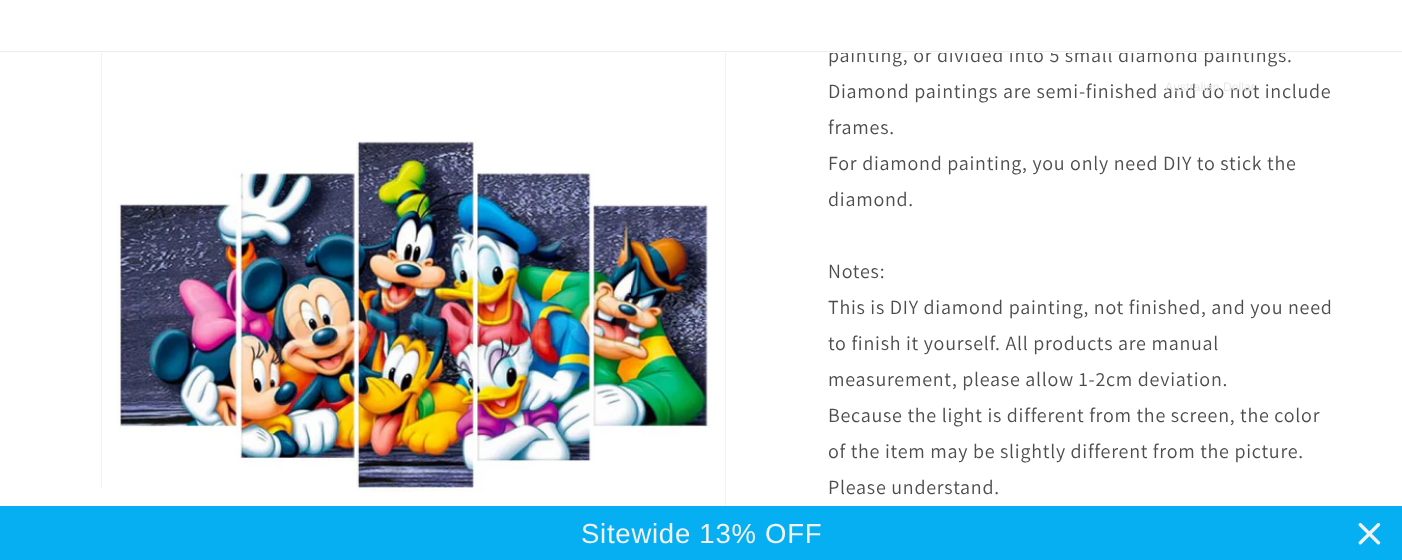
<!DOCTYPE html>
<meta charset="utf-8">
<style>body { margin: 0 } canvas { display: block }</style>
<canvas id="canvas" width="1402" height="560"></canvas>
<img id="img1" src="img_01.png" hidden>
<img id="img2" src="img_02.png" hidden>
<script>
window.onload = function () {
	const canvas = document.getElementById("canvas");
	const ctx = canvas.getContext("2d");
	ctx.miterLimit = 4;
	ctx.fontKerning = "normal";
	function txt(s, x, y) {
		ctx.fillText(s, x, y);
	}
	function fill(x, y, w, h) {
		ctx.fillRect(x, y, w, h);
	}
	function round(x, y, w, h, r) {
		ctx.beginPath();
		ctx.roundRect(x, y, w, h, r);
		ctx.fill();
	}
	function img(id, x, y, w, h) {
		ctx.drawImage(document.getElementById(id), x, y, w, h);
	}

	ctx.fillStyle = "#FFFFFF";
	fill(0, 0, 1402, 560);
	ctx.strokeStyle = "#F3F3F3";
	ctx.strokeRect(101.5, 4.5, 624, 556);
	img("img1", 117, 140, 594, 353);
	round(31, 488, 238, 41, 6);
	ctx.fillStyle = "#05AFF2";
	fill(0, 506, 1402, 54);
	img("img2", 1358, 522, 23, 23);
	ctx.letterSpacing = "0.75px";
	ctx.font = "20px Assistant";
	ctx.fillStyle = "#4D4D4D";
	txt("painting, or divided into 5 small diamond paintings.", 828, 62);
	txt("Diamond paintings are semi-finished and do not include", 828, 98);
	txt("frames.", 828, 134);
	txt("For diamond painting, you only need DIY to stick the", 828, 170);
	txt("diamond.", 828, 206);
	txt("Notes:", 828, 278);
	txt("This is DIY diamond painting, not finished, and you need", 828, 314);
	txt("to finish it yourself. All products are manual", 828, 350);
	txt("measurement, please allow 1-2cm deviation.", 828, 386);
	txt("Because the light is different from the screen, the color", 828, 422);
	txt("of the item may be slightly different from the picture.", 828, 458);
	txt("Please understand.", 828, 494);
	ctx.fillStyle = "#FFFFFF";
	fill(101, 4, 1184, 49);
	ctx.fillStyle = "#ECECEC";
	fill(0, 51, 1402, 1);
	ctx.letterSpacing = "0px";
	ctx.font = "12.25px Liberation Sans";
	ctx.fillStyle = "#E8E8E8";
	txt("Australian Dollar", 1165, 91);
	ctx.letterSpacing = "0.75px";
	ctx.font = "27.5px Liberation Sans";
	ctx.fillStyle = "#F2F2F2";
	txt("Sitewide 13% OFF", 581, 543);
};
</script>
